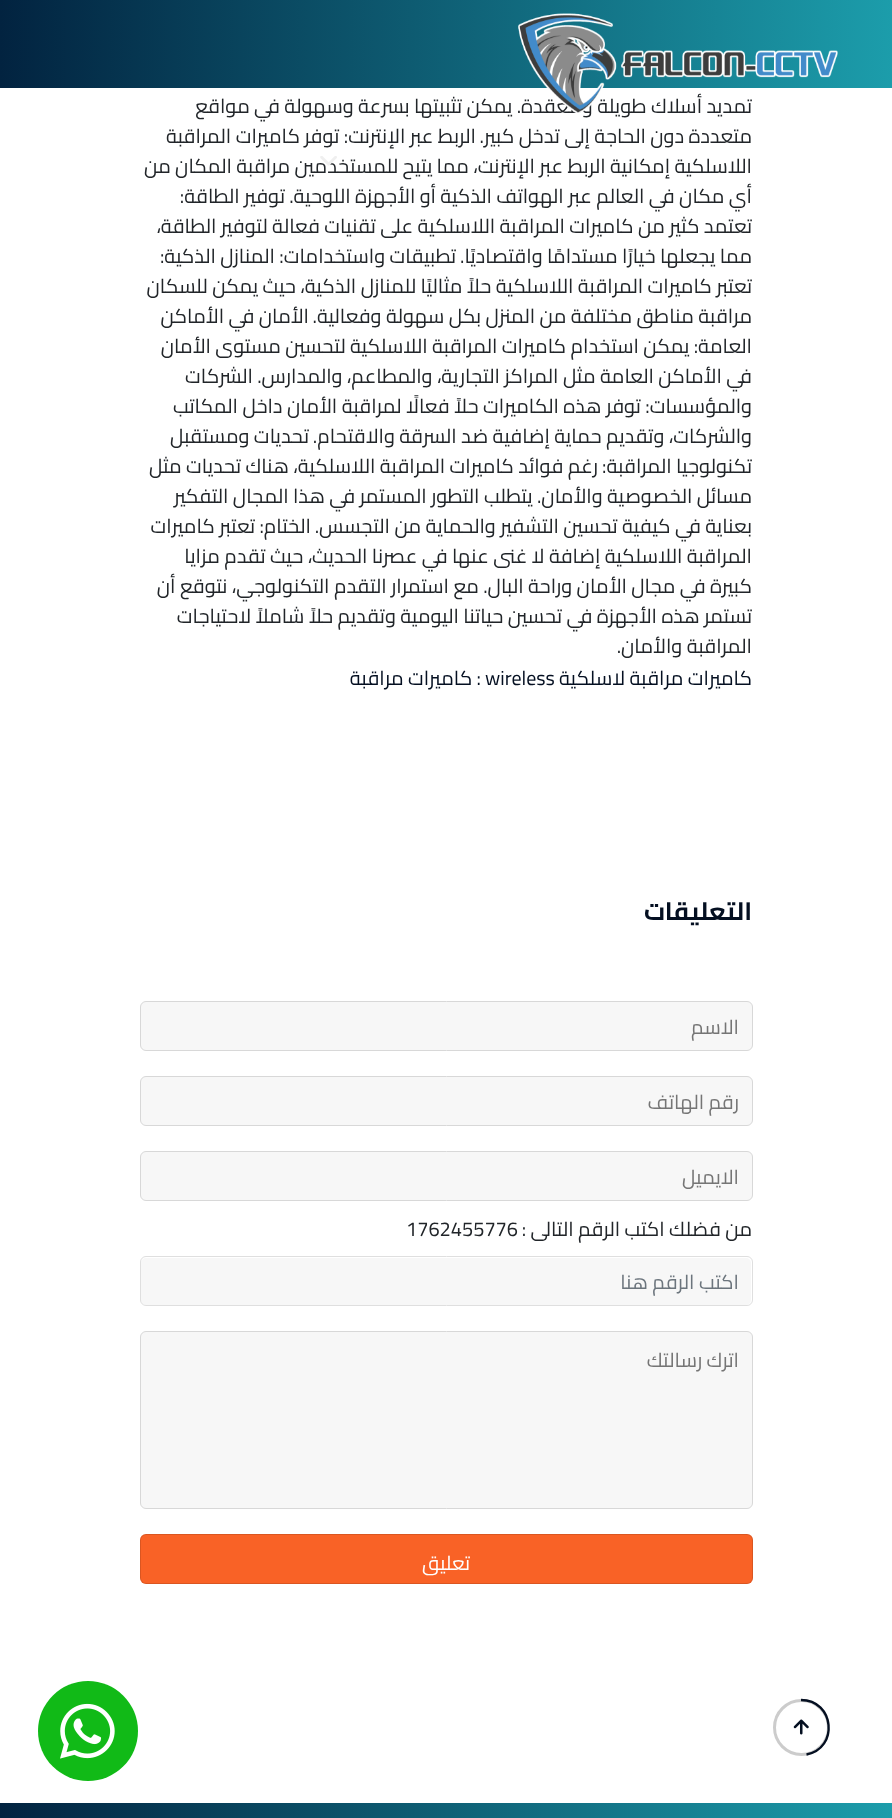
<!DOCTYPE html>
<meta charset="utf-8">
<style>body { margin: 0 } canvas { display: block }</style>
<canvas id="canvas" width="892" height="1818"></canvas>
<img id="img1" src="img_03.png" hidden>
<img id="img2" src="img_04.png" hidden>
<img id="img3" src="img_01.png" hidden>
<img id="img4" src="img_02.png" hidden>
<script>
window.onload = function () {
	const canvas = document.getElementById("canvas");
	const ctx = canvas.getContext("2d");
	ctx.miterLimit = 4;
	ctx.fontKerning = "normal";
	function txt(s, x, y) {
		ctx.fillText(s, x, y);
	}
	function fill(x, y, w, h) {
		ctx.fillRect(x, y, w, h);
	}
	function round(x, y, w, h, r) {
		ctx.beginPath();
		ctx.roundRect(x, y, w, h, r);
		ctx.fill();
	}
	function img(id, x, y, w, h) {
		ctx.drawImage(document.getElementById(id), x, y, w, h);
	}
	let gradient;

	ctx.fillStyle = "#FFFFFF";
	fill(0, 0, 892, 1818);
	gradient = ctx.createLinearGradient(0, 44, 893, 44);
	gradient.addColorStop(0, "#022340");
	gradient.addColorStop(1, "#1C9DAB");
	ctx.fillStyle = gradient;
	fill(0, 0, 892, 88);
	ctx.fillStyle = "#F7F7F7";
	ctx.beginPath();
	ctx.roundRect(140.5, 1001.5, 612, 49, 5.5);
	ctx.fill();
	ctx.strokeStyle = "#D8D8D8";
	ctx.stroke();
	ctx.beginPath();
	ctx.roundRect(140.5, 1076.5, 612, 49, 5.5);
	ctx.fill();
	ctx.stroke();
	ctx.beginPath();
	ctx.roundRect(140.5, 1151.5, 612, 49, 5.5);
	ctx.fill();
	ctx.stroke();
	round(141, 1258, 610, 47, 5);
	ctx.beginPath();
	ctx.roundRect(140.5, 1256.5, 612, 49, 5.5);
	ctx.strokeStyle = "#DFDFDF";
	ctx.stroke();
	ctx.beginPath();
	ctx.roundRect(140.5, 1331.5, 612, 177, 5.5);
	ctx.fill();
	ctx.strokeStyle = "#D8D8D8";
	ctx.stroke();
	ctx.fillStyle = "#F96226";
	round(140, 1534, 613, 50, 6);
	ctx.beginPath();
	ctx.roundRect(140.5, 1534.5, 612, 49, 5.5);
	ctx.strokeStyle = "rgba(0, 0, 0, 0.12)";
	ctx.stroke();
	ctx.beginPath();
	ctx.arc(801.5, 1727.5, 27, 0, Math.PI * 2);
	ctx.strokeStyle = "#CCCCCC";
	ctx.lineWidth = 3;
	ctx.stroke();
	ctx.beginPath();
	ctx.moveTo(801, 1700);
	ctx.bezierCurveTo(834.5, 1700, 839, 1748.5, 806.5, 1754.5);
	ctx.strokeStyle = "#040F21";
	ctx.lineWidth = 2.3;
	ctx.stroke();
	img("img1", 793, 1719, 16, 16);
	ctx.fillStyle = "#11BA17";
	ctx.beginPath();
	ctx.arc(88, 1731, 50, 0, Math.PI * 2);
	ctx.fill();
	img("img2", 60, 1703, 55, 56);
	gradient = ctx.createLinearGradient(0, 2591, 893, 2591);
	gradient.addColorStop(0, "#022340");
	gradient.addColorStop(1, "#1C9DAB");
	ctx.fillStyle = gradient;
	fill(0, 1803, 892, 15);
	ctx.direction = "rtl";
	ctx.font = "20px Cairo";
	ctx.fillStyle = "#212529";
	txt("تمديد أسلاك طويلة ومعقدة. يمكن تثبيتها بسرعة وسهولة في مواقع", 752, 113);
	img("img3", 518, 13, 320, 100);
	txt("متعددة دون الحاجة إلى تدخل كبير.", 752, 143);
	txt("الربط عبر الإنترنت: توفر كاميرات المراقبة", 476, 143);
	txt("اللاسلكية إمكانية الربط عبر الإنترنت، مما يتيح للمستخدمين مراقبة المكان من", 752, 173);
	img("img4", 320, 156, 17, 10);
	txt("أي مكان في العالم عبر الهواتف الذكية أو الأجهزة اللوحية.", 752, 203);
	txt("توفير الطاقة:", 285, 203);
	txt("تعتمد كثير من كاميرات المراقبة اللاسلكية على تقنيات فعالة لتوفير الطاقة،", 752, 233);
	txt("مما يجعلها خيارًا مستدامًا واقتصاديًا.", 752, 263);
	txt("تطبيقات واستخدامات:", 456, 263);
	txt("المنازل الذكية:", 275, 263);
	txt("تعتبر كاميرات المراقبة اللاسلكية حلاً مثاليًا للمنازل الذكية، حيث يمكن للسكان", 752, 293);
	txt("مراقبة مناطق مختلفة من المنزل بكل سهولة وفعالية.", 752, 323);
	txt("الأمان في الأماكن", 309, 323);
	txt("العامة: يمكن استخدام كاميرات المراقبة اللاسلكية لتحسين مستوى الأمان", 752, 353);
	txt("في الأماكن العامة مثل المراكز التجارية، والمطاعم، والمدارس.", 752, 383);
	txt("الشركات", 253, 383);
	txt("والمؤسسات: توفر هذه الكاميرات حلاً فعالًا لمراقبة الأمان داخل المكاتب", 752, 413);
	txt("والشركات، وتقديم حماية إضافية ضد السرقة والاقتحام.", 752, 443);
	txt("تحديات ومستقبل", 309, 443);
	txt("تكنولوجيا المراقبة:", 752, 473);
	txt("رغم فوائد كاميرات المراقبة اللاسلكية، هناك تحديات مثل", 598, 473);
	txt("مسائل الخصوصية والأمان. يتطلب التطور المستمر في هذا المجال التفكير", 752, 503);
	txt("بعناية في كيفية تحسين التشفير والحماية من التجسس.", 752, 533);
	txt("الختام:", 311, 533);
	txt("تعتبر كاميرات", 255, 533);
	txt("المراقبة اللاسلكية إضافة لا غنى عنها في عصرنا الحديث، حيث تقدم مزايا", 752, 563);
	txt("كبيرة في مجال الأمان وراحة البال. مع استمرار التقدم التكنولوجي، نتوقع أن", 752, 593);
	txt("تستمر هذه الأجهزة في تحسين حياتنا اليومية وتقديم حلاً شاملاً لاحتياجات", 752, 623);
	txt("المراقبة والأمان.", 752, 653);
	ctx.fillStyle = "#040F21";
	txt("كاميرات مراقبة لاسلكية", 752, 685);
	ctx.direction = "ltr";
	txt("wireless", 485, 685);
	ctx.direction = "rtl";
	txt(": كاميرات مراقبة", 481, 685);
	ctx.font = "bold 25px Cairo";
	txt("التعليقات", 752, 920);
	ctx.font = "20px Cairo";
	ctx.fillStyle = "#757575";
	txt("الاسم", 739, 1034);
	txt("رقم الهاتف", 739, 1109);
	txt("الايميل", 739, 1184);
	ctx.fillStyle = "#212529";
	txt("من فضلك اكتب الرقم التالى :", 752, 1236);
	ctx.direction = "ltr";
	txt("1762455776", 406, 1236);
	ctx.direction = "rtl";
	ctx.fillStyle = "#6C757D";
	txt("اكتب الرقم هنا", 739, 1289);
	ctx.fillStyle = "#757575";
	txt("اترك رسالتك", 739, 1367);
	ctx.fillStyle = "#FFFFFF";
	txt("تعليق", 470, 1570);
};
</script>
